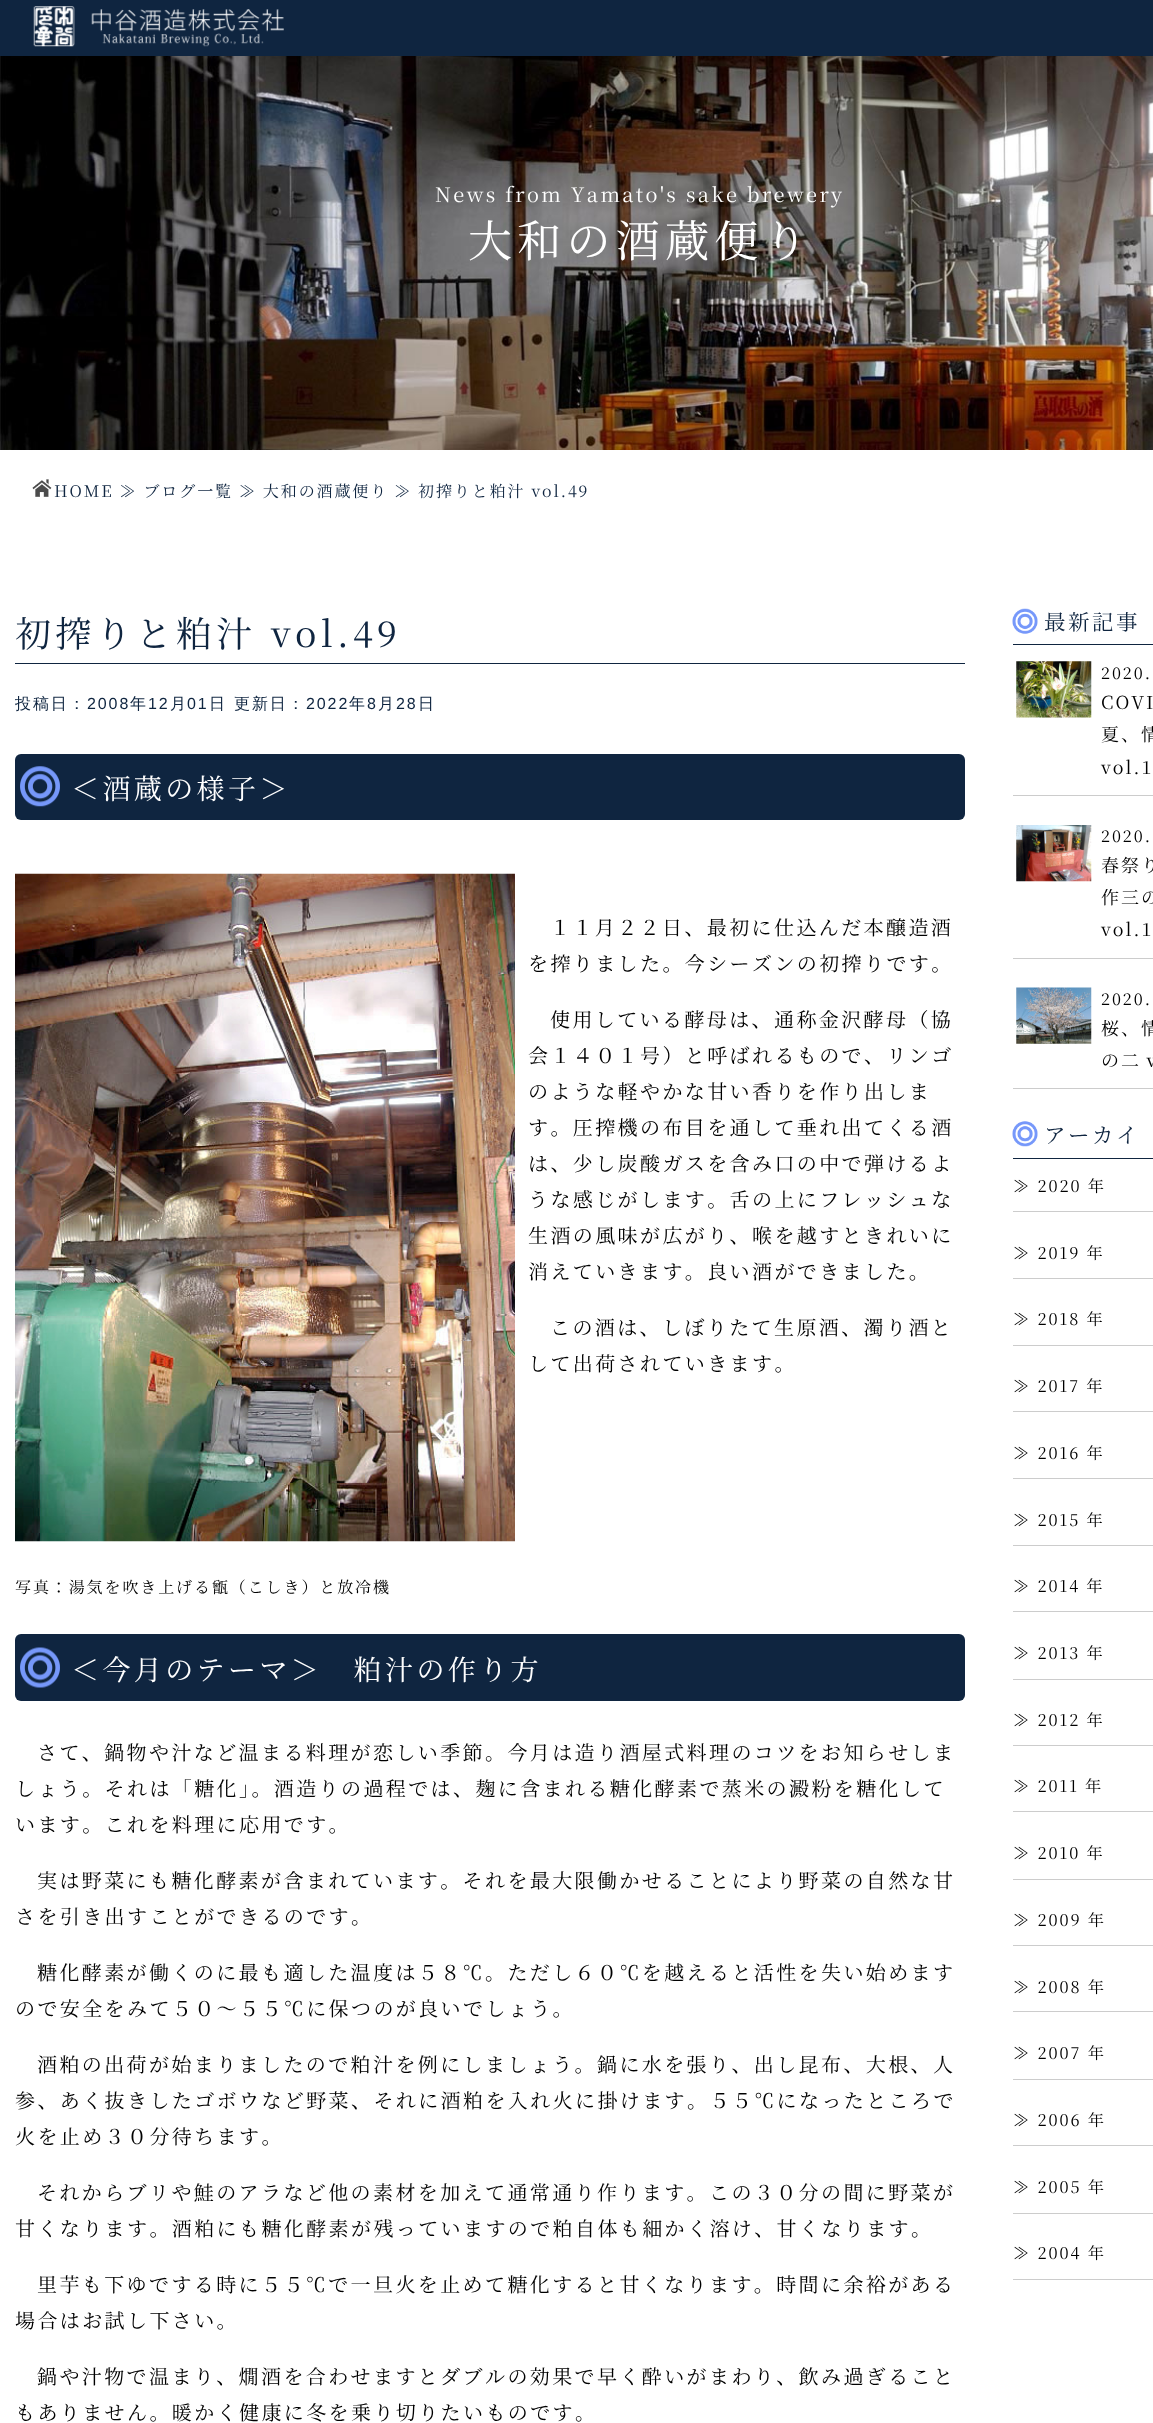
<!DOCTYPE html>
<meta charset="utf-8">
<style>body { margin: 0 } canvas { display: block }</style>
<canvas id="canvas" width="1153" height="2423"></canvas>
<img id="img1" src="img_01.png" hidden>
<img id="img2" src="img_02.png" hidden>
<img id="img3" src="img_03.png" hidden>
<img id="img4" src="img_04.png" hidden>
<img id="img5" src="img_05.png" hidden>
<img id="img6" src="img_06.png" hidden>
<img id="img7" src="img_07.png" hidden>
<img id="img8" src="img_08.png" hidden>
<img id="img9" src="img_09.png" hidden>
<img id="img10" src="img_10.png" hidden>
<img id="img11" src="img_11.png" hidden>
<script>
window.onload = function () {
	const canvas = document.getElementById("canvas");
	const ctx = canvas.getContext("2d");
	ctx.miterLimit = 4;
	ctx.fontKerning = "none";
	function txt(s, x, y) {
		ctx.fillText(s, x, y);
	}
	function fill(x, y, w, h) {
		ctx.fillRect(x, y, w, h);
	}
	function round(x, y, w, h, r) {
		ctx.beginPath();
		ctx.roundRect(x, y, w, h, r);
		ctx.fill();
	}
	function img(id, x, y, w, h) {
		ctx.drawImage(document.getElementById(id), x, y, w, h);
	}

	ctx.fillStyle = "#FFFFFF";
	fill(0, 0, 1153, 2423);
	ctx.fillStyle = "#0F2540";
	fill(0, 0, 1153, 56);
	img("img1", 33, 6, 251, 41);
	img("img2", 0, 56, 1153, 394);
	img("img3", 32, 479, 20, 18);
	fill(15, 663, 950, 1);
	round(15, 754, 950, 66, 6);
	img("img4", 20, 766, 40, 41);
	img("img5", 15, 873, 500, 669);
	round(15, 1634, 950, 67, 6);
	img("img6", 20, 1647, 40, 41);
	fill(1013, 644, 140, 1);
	img("img7", 1012, 608, 26, 26);
	ctx.fillStyle = "#CCCCCC";
	fill(1013, 795, 140, 1);
	img("img8", 1016, 661, 76, 57);
	fill(1013, 958, 140, 1);
	img("img9", 1016, 825, 76, 57);
	fill(1013, 1088, 140, 1);
	img("img10", 1016, 987, 76, 57);
	ctx.fillStyle = "#0F2540";
	fill(1013, 1158, 140, 1);
	img("img11", 1012, 1121, 26, 26);
	ctx.fillStyle = "#CCCCCC";
	fill(1013, 1211, 140, 1);
	fill(1013, 1278, 140, 1);
	fill(1013, 1345, 140, 1);
	fill(1013, 1411, 140, 1);
	fill(1013, 1478, 140, 1);
	fill(1013, 1545, 140, 1);
	fill(1013, 1611, 140, 1);
	fill(1013, 1679, 140, 1);
	fill(1013, 1745, 140, 1);
	fill(1013, 1811, 140, 1);
	fill(1013, 1879, 140, 1);
	fill(1013, 1945, 140, 1);
	fill(1013, 2011, 140, 1);
	fill(1013, 2079, 140, 1);
	fill(1013, 2145, 140, 1);
	fill(1013, 2213, 140, 1);
	fill(1013, 2279, 140, 1);
	ctx.letterSpacing = "2.4px";
	ctx.font = "200 20px Noto Serif JP";
	ctx.fillStyle = "#FFFFFF";
	txt("News from Yamato's", 435, 202);
	txt("sake brewery", 686, 202);
	ctx.letterSpacing = "5.25px";
	ctx.font = "200 44px Noto Serif JP";
	txt("大和の酒蔵便り", 468, 257);
	ctx.letterSpacing = "1.9px";
	ctx.font = "200 16px Noto Serif JP";
	ctx.fillStyle = "#0F2540";
	txt("HOME ≫ ブログ一覧 ≫ 大和の酒蔵便り ≫ 初搾りと粕汁 vol.49", 54, 497);
	ctx.letterSpacing = "4.25px";
	ctx.wordSpacing = "1px";
	ctx.font = "200 36px Noto Serif JP";
	txt("初搾りと粕汁 vol.49", 15, 647);
	ctx.letterSpacing = "1.9px";
	ctx.wordSpacing = "0px";
	ctx.font = "500 16px WenQuanYi Zen Hei";
	txt("投稿日：", 15, 709);
	ctx.font = "16px Liberation Sans";
	txt("2008", 87, 709);
	ctx.font = "500 16px WenQuanYi Zen Hei";
	txt("年", 130, 709);
	ctx.font = "16px Liberation Sans";
	txt("12", 148, 709);
	ctx.font = "500 16px WenQuanYi Zen Hei";
	txt("月", 170, 709);
	ctx.font = "16px Liberation Sans";
	txt("01", 187, 709);
	ctx.font = "500 16px WenQuanYi Zen Hei";
	txt("日", 209, 709);
	txt("更新日：", 234, 709);
	ctx.font = "16px Liberation Sans";
	txt("2022", 306, 709);
	ctx.font = "500 16px WenQuanYi Zen Hei";
	txt("年", 349, 709);
	ctx.font = "16px Liberation Sans";
	txt("8", 367, 709);
	ctx.font = "500 16px WenQuanYi Zen Hei";
	txt("月", 378, 709);
	ctx.font = "16px Liberation Sans";
	txt("28", 396, 709);
	ctx.font = "500 16px WenQuanYi Zen Hei";
	txt("日", 418, 709);
	ctx.letterSpacing = "3.4px";
	ctx.font = "200 28px Noto Serif JP";
	ctx.fillStyle = "#FFFFFF";
	txt("＜酒蔵の様子＞", 71, 799);
	ctx.letterSpacing = "2.4px";
	ctx.font = "200 20px Noto Serif JP";
	ctx.fillStyle = "#000000";
	txt("１１月２２日、最初に仕込んだ本醸造酒", 550, 935);
	txt("を搾りました。今シーズンの初搾りです。", 528, 971);
	txt("使用している酵母は、通称金沢酵母（協", 550, 1027);
	txt("会１４０１号）と呼ばれるもので、リンゴ", 528, 1063);
	txt("のような軽やかな甘い香りを作り出しま", 528, 1099);
	txt("す。圧搾機の布目を通して垂れ出てくる酒", 528, 1135);
	txt("は、少し炭酸ガスを含み口の中で弾けるよ", 528, 1171);
	txt("うな感じがします。舌の上にフレッシュな", 528, 1207);
	txt("生酒の風味が広がり、喉を越すときれいに", 528, 1243);
	txt("消えていきます。良い酒ができました。", 528, 1279);
	txt("この酒は、しぼりたて生原酒、濁り酒と", 550, 1335);
	txt("して出荷されていきます。", 528, 1371);
	ctx.letterSpacing = "1.9px";
	ctx.font = "200 16px Noto Serif JP";
	txt("写真：湯気を吹き上げる甑（こしき）と放冷機", 15, 1593);
	ctx.letterSpacing = "3.4px";
	ctx.font = "200 28px Noto Serif JP";
	ctx.fillStyle = "#FFFFFF";
	txt("＜今月のテーマ＞　粕汁の作り方", 71, 1680);
	ctx.letterSpacing = "2.4px";
	ctx.font = "200 20px Noto Serif JP";
	ctx.fillStyle = "#000000";
	txt("さて、鍋物や汁など温まる料理が恋しい季節。今月は造り酒屋式料理のコツをお知らせしま", 37, 1760);
	txt("しょう。それは「糖化」。酒造りの過程では、麹に含まれる糖化酵素で蒸米の澱粉を糖化して", 15, 1796);
	txt("います。これを料理に応用です。", 15, 1832);
	txt("実は野菜にも糖化酵素が含まれています。それを最大限働かせることにより野菜の自然な甘", 37, 1888);
	txt("さを引き出すことができるのです。", 15, 1924);
	txt("糖化酵素が働くのに最も適した温度は５８℃。ただし６０℃を越えると活性を失い始めます", 37, 1980);
	txt("ので安全をみて５０～５５℃に保つのが良いでしょう。", 15, 2016);
	txt("酒粕の出荷が始まりましたので粕汁を例にしましょう。鍋に水を張り、出し昆布、大根、人", 37, 2072);
	txt("参、あく抜きしたゴボウなど野菜、それに酒粕を入れ火に掛けます。５５℃になったところで", 15, 2108);
	txt("火を止め３０分待ちます。", 15, 2144);
	txt("それからブリや鮭のアラなど他の素材を加えて通常通り作ります。この３０分の間に野菜が", 37, 2200);
	txt("甘くなります。酒粕にも糖化酵素が残っていますので粕自体も細かく溶け、甘くなります。", 15, 2236);
	txt("里芋も下ゆでする時に５５℃で一旦火を止めて糖化すると甘くなります。時間に余裕がある", 37, 2292);
	txt("場合はお試し下さい。", 15, 2328);
	txt("鍋や汁物で温まり、燗酒を合わせますとダブルの効果で早く酔いがまわり、飲み過ぎること", 37, 2384);
	txt("もありません。暖かく健康に冬を乗り切りたいものです。", 15, 2420);
	ctx.letterSpacing = "2.5px";
	ctx.font = "200 21.5px Noto Serif JP";
	ctx.fillStyle = "#0F2540";
	txt("最新記事", 1044, 630);
	ctx.letterSpacing = "2px";
	ctx.font = "200 16.25px Noto Serif JP";
	ctx.fillStyle = "#000000";
	txt("2020.", 1101, 679);
	ctx.font = "200 18px Noto Serif JP";
	txt("COVI", 1101, 709);
	txt("夏、情", 1101, 741);
	txt("vol.1", 1101, 774);
	ctx.font = "200 16.25px Noto Serif JP";
	txt("2020.", 1101, 842);
	ctx.font = "200 18px Noto Serif JP";
	txt("春祭り", 1101, 872);
	txt("作三の", 1101, 904);
	txt("vol.1", 1101, 936);
	ctx.font = "200 16.25px Noto Serif JP";
	txt("2020.", 1101, 1005);
	ctx.font = "200 18px Noto Serif JP";
	txt("桜、情", 1101, 1035);
	ctx.wordSpacing = "-1px";
	txt("の二 v", 1101, 1067);
	ctx.letterSpacing = "2.5px";
	ctx.wordSpacing = "0px";
	ctx.font = "200 21.5px Noto Serif JP";
	ctx.fillStyle = "#0F2540";
	txt("アーカイ", 1044, 1143);
	ctx.letterSpacing = "2px";
	ctx.font = "200 16.25px Noto Serif JP";
	ctx.fillStyle = "#000000";
	txt("≫ 2020 年", 1013, 1192);
	txt("≫ 2019 年", 1013, 1259);
	txt("≫ 2018 年", 1013, 1325);
	txt("≫ 2017 年", 1013, 1392);
	txt("≫ 2016 年", 1013, 1459);
	txt("≫ 2015 年", 1013, 1526);
	txt("≫ 2014 年", 1013, 1592);
	txt("≫ 2013 年", 1013, 1659);
	txt("≫ 2012 年", 1013, 1726);
	txt("≫ 2011 年", 1013, 1792);
	txt("≫ 2010 年", 1013, 1859);
	txt("≫ 2009 年", 1013, 1926);
	txt("≫ 2008 年", 1013, 1993);
	txt("≫ 2007 年", 1013, 2059);
	txt("≫ 2006 年", 1013, 2126);
	txt("≫ 2005 年", 1013, 2193);
	txt("≫ 2004 年", 1013, 2259);
};
</script>
